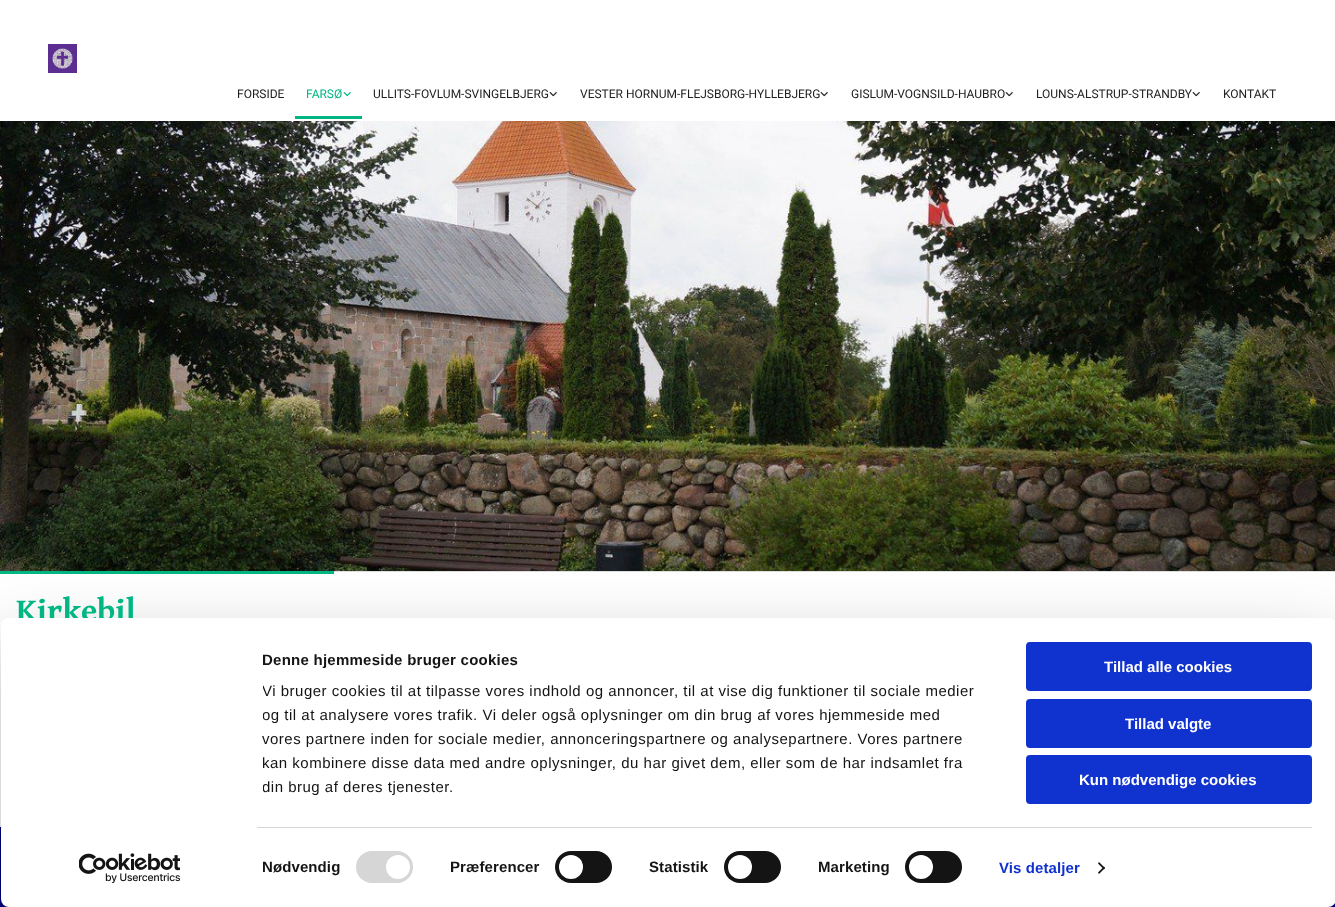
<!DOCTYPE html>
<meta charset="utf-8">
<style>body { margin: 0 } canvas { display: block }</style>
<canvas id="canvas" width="1335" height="907"></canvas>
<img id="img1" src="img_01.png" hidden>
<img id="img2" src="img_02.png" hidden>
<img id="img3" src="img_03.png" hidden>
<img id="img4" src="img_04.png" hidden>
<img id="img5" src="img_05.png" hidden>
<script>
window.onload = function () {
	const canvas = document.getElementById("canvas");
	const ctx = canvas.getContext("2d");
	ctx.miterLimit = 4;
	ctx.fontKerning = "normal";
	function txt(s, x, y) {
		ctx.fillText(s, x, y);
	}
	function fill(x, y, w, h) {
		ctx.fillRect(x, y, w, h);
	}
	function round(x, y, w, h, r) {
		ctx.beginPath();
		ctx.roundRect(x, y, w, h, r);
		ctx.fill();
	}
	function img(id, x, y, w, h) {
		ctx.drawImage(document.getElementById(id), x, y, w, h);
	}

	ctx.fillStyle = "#FFFFFF";
	fill(0, 0, 1335, 907);
	img("img1", 48, 44, 29, 29);
	ctx.fillStyle = "#00B683";
	fill(295, 116, 67, 3);
	img("img2", 343, 92, 8, 5);
	img("img3", 549, 92, 8, 5);
	img("img3", 820, 92, 8, 5);
	img("img3", 1005, 92, 8, 5);
	img("img3", 1192, 92, 8, 5);
	img("img4", 0, 121, 1335, 450);
	ctx.fillStyle = "#DEDEDE";
	fill(334, 571, 1001, 1);
	ctx.fillStyle = "#00B683";
	fill(0, 571, 334, 3);
	ctx.fillStyle = "#00007F";
	fill(0, 827, 1335, 80);
	ctx.save();
	ctx.beginPath();
	ctx.moveTo(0, 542);
	ctx.lineTo(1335, 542);
	ctx.lineTo(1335, 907);
	ctx.lineTo(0, 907);
	ctx.closePath();
	ctx.moveTo(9, 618);
	ctx.lineTo(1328, 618);
	ctx.bezierCurveTo(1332.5, 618, 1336, 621.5, 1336, 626);
	ctx.lineTo(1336, 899);
	ctx.bezierCurveTo(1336, 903.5, 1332.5, 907, 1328, 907);
	ctx.lineTo(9, 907);
	ctx.bezierCurveTo(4.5, 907, 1, 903.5, 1, 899);
	ctx.lineTo(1, 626);
	ctx.bezierCurveTo(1, 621.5, 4.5, 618, 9, 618);
	ctx.closePath();
	ctx.clip("evenodd");
	ctx.fillStyle = "rgba(0, 0, 0, 0.3)";
	ctx.filter = "blur(35px)";
	ctx.beginPath();
	ctx.roundRect(1, 648, 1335, 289, 8);
	ctx.fill();
	ctx.filter = "none";
	ctx.restore();
	ctx.font = "12px Roboto";
	ctx.fillStyle = "#212121";
	txt("FORSIDE", 237, 98);
	ctx.fillStyle = "#00B683";
	txt("FARSØ", 306, 98);
	ctx.fillStyle = "#212121";
	txt("ULLITS-FOVLUM-SVINGELBJERG", 373, 98);
	txt("VESTER HORNUM-FLEJSBORG-HYLLEBJERG", 580, 98);
	txt("GISLUM-VOGNSILD-HAUBRO", 851, 98);
	txt("LOUNS-ALSTRUP-STRANDBY", 1036, 98);
	txt("KONTAKT", 1223, 98);
	ctx.font = "bold 33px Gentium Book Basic";
	ctx.fillStyle = "#00B683";
	txt("Kirkebil", 16, 621);
	ctx.fillStyle = "#FFFFFF";
	round(1, 618, 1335, 289, 8);
	ctx.letterSpacing = "0.25px";
	ctx.font = "bold 15px Liberation Sans";
	ctx.fillStyle = "#141414";
	txt("Denne hjemmeside bruger cookies", 262, 665);
	ctx.save();
	ctx.beginPath();
	ctx.rect(263, 648, 734, 151);
	ctx.clip();
	ctx.letterSpacing = "0.5px";
	ctx.font = "15px Liberation Sans";
	txt("Vi bruger cookies til at tilpasse vores indhold og annoncer, til at vise dig funktioner til sociale medier", 262, 696);
	txt("og til at analysere vores trafik. Vi deler også oplysninger om din brug af vores hjemmeside med", 262, 720);
	ctx.restore();
	ctx.letterSpacing = "0.5px";
	ctx.font = "15px Liberation Sans";
	txt("vores partnere inden for sociale medier, annonceringspartnere og analysepartnere. Vores partnere", 262, 744);
	txt("kan kombinere disse data med andre oplysninger, du har givet dem, eller som de har indsamlet fra", 262, 768);
	ctx.save();
	ctx.beginPath();
	ctx.rect(263, 648, 734, 151);
	ctx.clip();
	txt("din brug af deres tjenester.", 262, 792);
	ctx.restore();
	ctx.fillStyle = "#D6D6D6";
	fill(257, 827, 1055, 1);
	ctx.letterSpacing = "0.1px";
	ctx.font = "bold 15px Liberation Sans";
	ctx.fillStyle = "#141414";
	txt("Nødvendig", 262, 872);
	ctx.fillStyle = "#D6D6D6";
	round(356, 851, 57, 32, 16);
	ctx.fillStyle = "#FFFFFF";
	ctx.beginPath();
	ctx.arc(398, 867, 12, 0, Math.PI * 2);
	ctx.fill();
	ctx.fillStyle = "#141414";
	txt("Præferencer", 450, 872);
	round(555, 851, 57, 32, 16);
	ctx.fillStyle = "#FFFFFF";
	ctx.beginPath();
	ctx.arc(571, 867, 12, 0, Math.PI * 2);
	ctx.fill();
	ctx.fillStyle = "#141414";
	txt("Statistik", 649, 872);
	round(724, 851, 57, 32, 16);
	ctx.fillStyle = "#FFFFFF";
	ctx.beginPath();
	ctx.arc(740, 867, 12, 0, Math.PI * 2);
	ctx.fill();
	ctx.fillStyle = "#141414";
	txt("Marketing", 818, 872);
	round(905, 851, 57, 32, 16);
	ctx.fillStyle = "#FFFFFF";
	ctx.beginPath();
	ctx.arc(921, 867, 12, 0, Math.PI * 2);
	ctx.fill();
	ctx.fillStyle = "#1032CF";
	txt("Vis detaljer", 999, 873);
	ctx.fillStyle = "#141414";
	ctx.beginPath();
	ctx.moveTo(1099, 862);
	ctx.lineTo(1105, 868);
	ctx.lineTo(1104, 869.5);
	ctx.lineTo(1098, 863.5);
	ctx.closePath();
	ctx.fill();
	ctx.beginPath();
	ctx.moveTo(1104, 866.5);
	ctx.lineTo(1105, 868);
	ctx.lineTo(1099, 874);
	ctx.lineTo(1098, 872.5);
	ctx.closePath();
	ctx.fill();
	ctx.fillStyle = "#1032CF";
	ctx.beginPath();
	ctx.roundRect(1027, 643, 284, 47, 3);
	ctx.fill();
	ctx.strokeStyle = "#1032CF";
	ctx.lineWidth = 2;
	ctx.stroke();
	ctx.letterSpacing = "0px";
	ctx.fillStyle = "#FFFFFF";
	txt("Tillad alle cookies", 1104, 672);
	ctx.fillStyle = "#1032CF";
	ctx.beginPath();
	ctx.roundRect(1027, 700, 284, 47, 3);
	ctx.fill();
	ctx.stroke();
	ctx.fillStyle = "#FFFFFF";
	txt("Tillad valgte", 1125, 729);
	ctx.fillStyle = "#1032CF";
	ctx.beginPath();
	ctx.roundRect(1027, 756, 284, 47, 3);
	ctx.fill();
	ctx.stroke();
	ctx.fillStyle = "#FFFFFF";
	txt("Kun nødvendige cookies", 1079, 785);
	img("img5", 79, 853, 101, 30);
};
</script>
